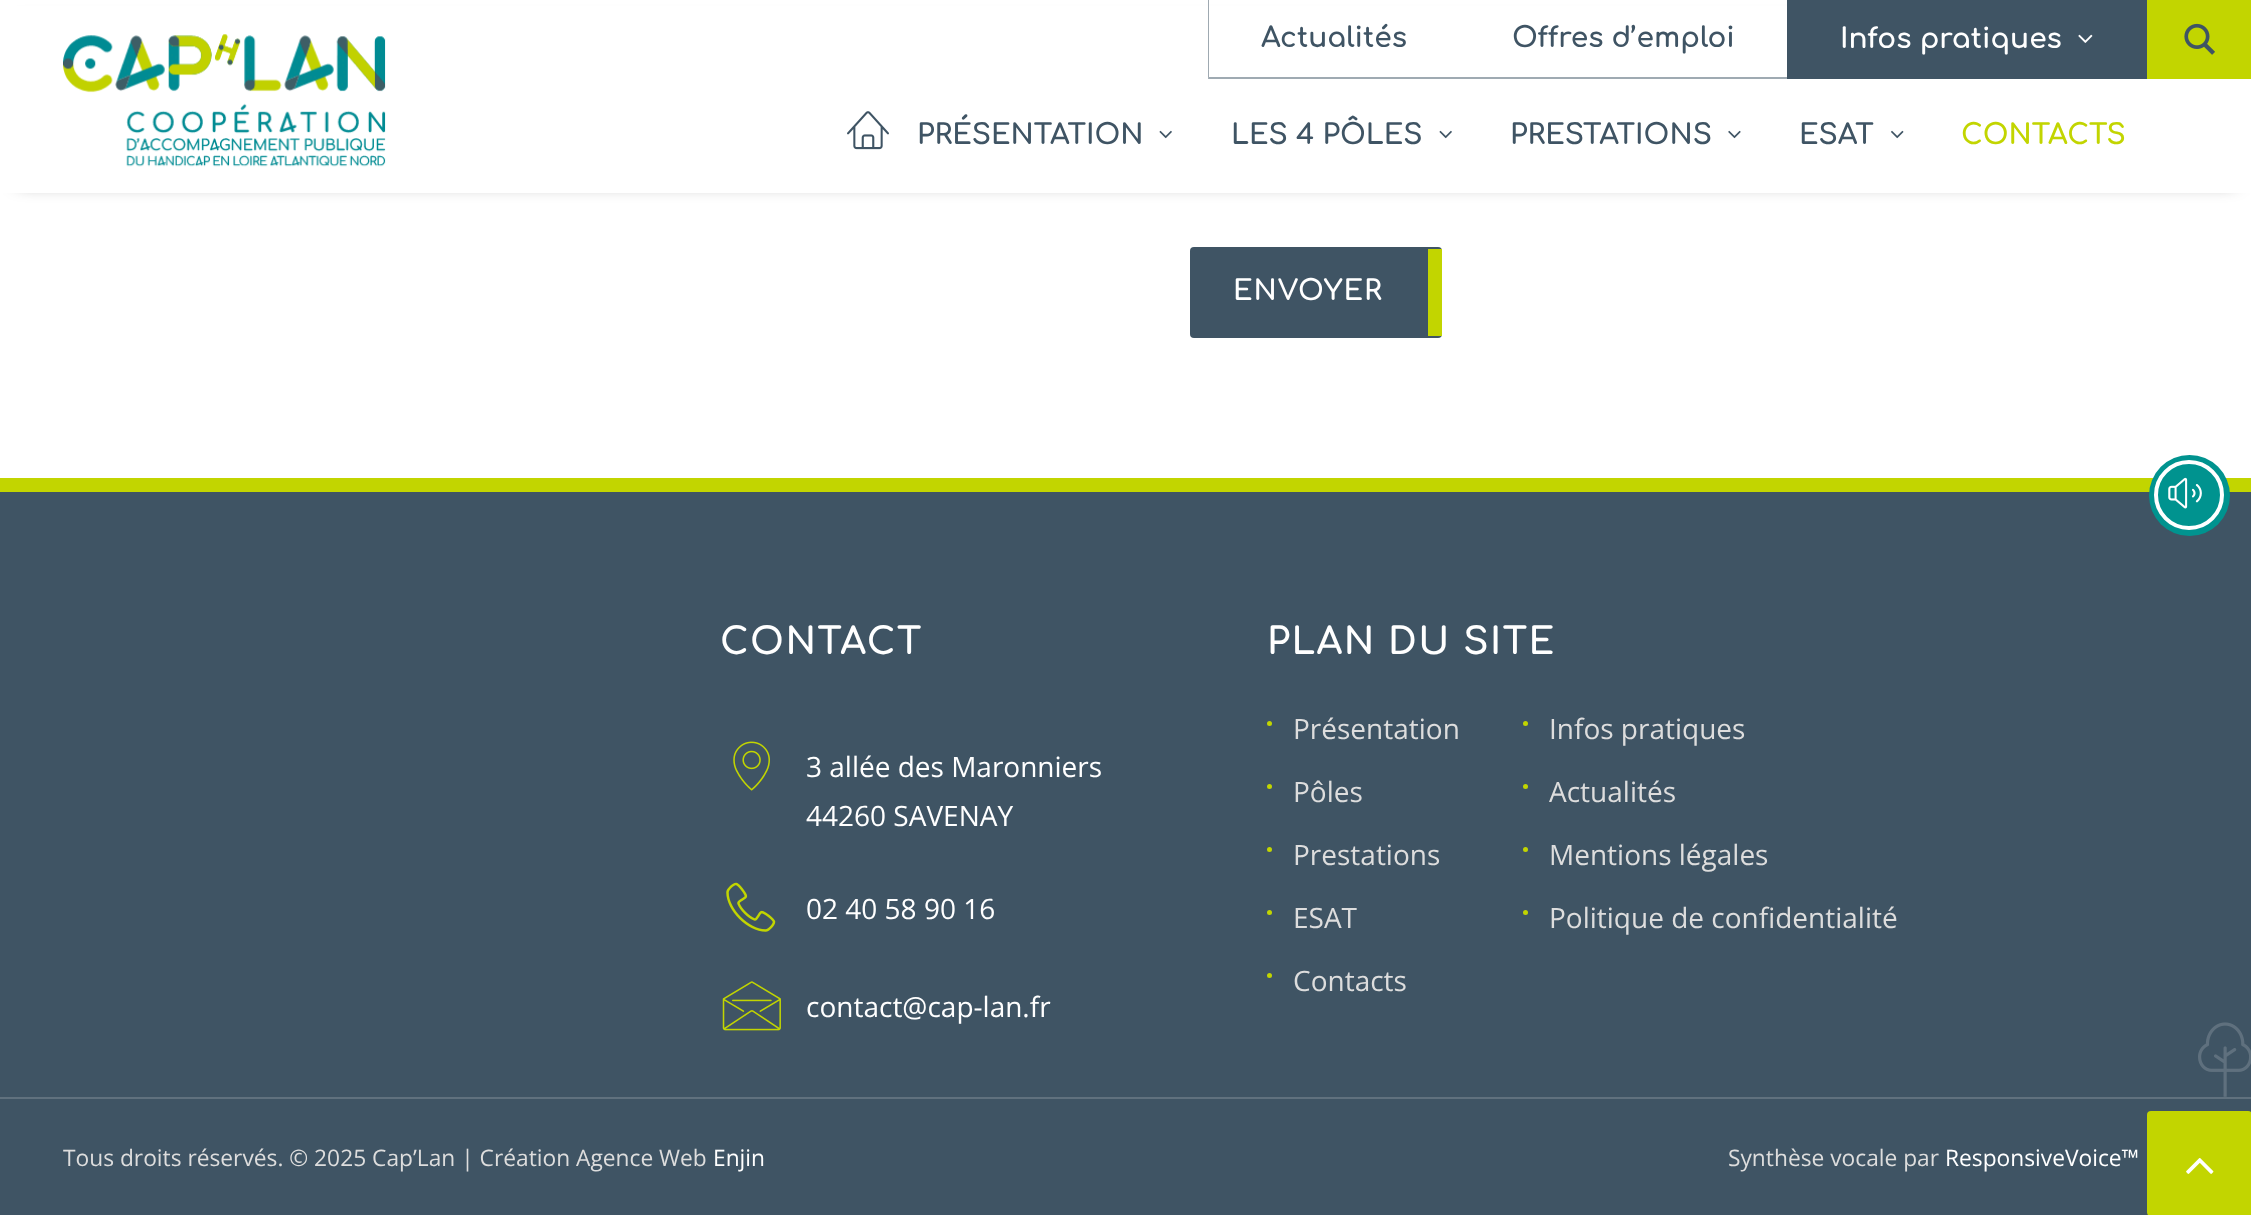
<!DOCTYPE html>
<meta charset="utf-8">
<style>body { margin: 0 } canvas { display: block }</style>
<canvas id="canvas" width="2251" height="1215"></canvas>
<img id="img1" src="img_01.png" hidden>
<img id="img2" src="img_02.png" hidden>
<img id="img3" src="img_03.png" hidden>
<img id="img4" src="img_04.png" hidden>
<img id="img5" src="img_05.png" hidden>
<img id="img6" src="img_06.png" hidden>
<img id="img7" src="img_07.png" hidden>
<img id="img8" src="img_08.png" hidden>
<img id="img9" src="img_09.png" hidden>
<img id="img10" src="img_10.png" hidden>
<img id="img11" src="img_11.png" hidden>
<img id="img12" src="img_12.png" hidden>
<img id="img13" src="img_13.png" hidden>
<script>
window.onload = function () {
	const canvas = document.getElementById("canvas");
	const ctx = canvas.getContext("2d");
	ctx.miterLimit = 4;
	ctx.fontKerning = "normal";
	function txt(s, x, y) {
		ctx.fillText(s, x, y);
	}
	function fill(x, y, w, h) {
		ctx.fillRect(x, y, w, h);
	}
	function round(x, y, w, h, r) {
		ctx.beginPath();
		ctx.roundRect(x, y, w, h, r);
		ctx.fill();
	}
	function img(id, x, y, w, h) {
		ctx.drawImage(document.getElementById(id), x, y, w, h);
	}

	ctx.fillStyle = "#FFFFFF";
	fill(0, 0, 2251, 1215);
	ctx.fillStyle = "rgba(0, 0, 0, 0.6)";
	ctx.filter = "blur(9px)";
	ctx.beginPath();
	ctx.rect(18, 25, 2217, 157);
	ctx.fill();
	ctx.filter = "none";
	ctx.fillStyle = "#FFFFFF";
	fill(0, 6, 2251, 187);
	ctx.fillStyle = "#9FAAB2";
	ctx.beginPath();
	ctx.moveTo(1460, 79);
	ctx.lineTo(1208, 79);
	ctx.lineTo(1209, 77);
	ctx.lineTo(1460, 77);
	ctx.closePath();
	ctx.fill();
	ctx.fillStyle = "rgba(63, 84, 100, 0.5)";
	ctx.beginPath();
	ctx.moveTo(1208, 79);
	ctx.lineTo(1208, 0);
	ctx.lineTo(1209, 0);
	ctx.lineTo(1209, 77);
	ctx.closePath();
	ctx.fill();
	ctx.fillStyle = "#9FAAB2";
	fill(1460, 77, 327, 2);
	ctx.fillStyle = "#3F5464";
	fill(1787, 0, 360, 79);
	img("img1", 2078, 34, 15, 9);
	ctx.fillStyle = "#C2D500";
	fill(2147, 0, 104, 79);
	img("img2", 2184, 23, 31, 32);
	img("img3", 63, 34, 323, 133);
	img("img4", 847, 111, 42, 39);
	img("img5", 1159, 130, 13, 9);
	img("img5", 1439, 130, 13, 9);
	img("img6", 1728, 130, 13, 9);
	img("img7", 1891, 130, 13, 9);
	ctx.fillStyle = "#3F5464";
	round(1190, 247, 252, 91, 4);
	ctx.fillStyle = "#C2D500";
	fill(1428, 249, 14, 87);
	ctx.fillStyle = "#3F5464";
	fill(0, 492, 2251, 723);
	ctx.fillStyle = "#C2D500";
	fill(0, 478, 2251, 14);
	img("img8", 733, 741, 37, 50);
	img("img9", 726, 882, 50, 50);
	img("img10", 722, 981, 59, 50);
	ctx.beginPath();
	ctx.arc(1269.5, 723.5, 2.5, 0, Math.PI * 2);
	ctx.fill();
	ctx.beginPath();
	ctx.arc(1269.5, 786.5, 2.5, 0, Math.PI * 2);
	ctx.fill();
	ctx.beginPath();
	ctx.arc(1269.5, 849.5, 2.5, 0, Math.PI * 2);
	ctx.fill();
	ctx.beginPath();
	ctx.arc(1269.5, 912.5, 2.5, 0, Math.PI * 2);
	ctx.fill();
	ctx.beginPath();
	ctx.arc(1269.5, 975.5, 2.5, 0, Math.PI * 2);
	ctx.fill();
	ctx.beginPath();
	ctx.arc(1525.5, 723.5, 2.5, 0, Math.PI * 2);
	ctx.fill();
	ctx.beginPath();
	ctx.arc(1525.5, 786.5, 2.5, 0, Math.PI * 2);
	ctx.fill();
	ctx.beginPath();
	ctx.arc(1525.5, 849.5, 2.5, 0, Math.PI * 2);
	ctx.fill();
	ctx.beginPath();
	ctx.arc(1525.5, 912.5, 2.5, 0, Math.PI * 2);
	ctx.fill();
	ctx.fillStyle = "#60717E";
	fill(0, 1097, 2251, 2);
	img("img11", 2198, 1022, 53, 75);
	ctx.fillStyle = "#00938F";
	ctx.beginPath();
	ctx.arc(2189.5, 495.5, 40.5, 0, Math.PI * 2);
	ctx.fill();
	ctx.beginPath();
	ctx.arc(2189, 495, 33, 0, Math.PI * 2);
	ctx.strokeStyle = "#FFFFFF";
	ctx.lineWidth = 4;
	ctx.stroke();
	img("img12", 2168, 477, 34, 32);
	ctx.fillStyle = "#C2D500";
	round(2147, 1111, 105, 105, 4);
	img("img13", 2186, 1158, 28, 16);
	ctx.font = "bold 28px Comfortaa";
	ctx.fillStyle = "#3F5464";
	txt("Actualités", 1261, 47);
	txt("Offres d’emploi", 1512, 47);
	ctx.fillStyle = "#FFFFFF";
	txt("Infos pratiques", 1840, 48);
	ctx.fillStyle = "#3F5464";
	txt("PRÉSENTATION", 917, 144);
	txt("LES 4 PÔLES", 1231, 144);
	txt("PRESTATIONS", 1510, 144);
	txt("ESAT", 1799, 144);
	ctx.fillStyle = "#C2D500";
	txt("CONTACTS", 1961, 144);
	ctx.letterSpacing = "1px";
	ctx.fillStyle = "#FFFFFF";
	txt("ENVOYER", 1233, 300);
	ctx.letterSpacing = "1.5px";
	ctx.font = "bold 36.75px Comfortaa";
	txt("CONTACT", 720, 654);
	ctx.letterSpacing = "0px";
	ctx.font = "28px Open Sans";
	txt("3 allée des Maronniers", 806, 777);
	txt("44260 SAVENAY", 806, 826);
	txt("02 40 58 90 16", 806, 919);
	txt("contact@cap-lan.fr", 806, 1017);
	ctx.letterSpacing = "1.5px";
	ctx.font = "bold 36.75px Comfortaa";
	txt("PLAN DU SITE", 1267, 654);
	ctx.letterSpacing = "0px";
	ctx.font = "28px Open Sans";
	ctx.fillStyle = "#DDDDDD";
	txt("Présentation", 1293, 739);
	txt("Pôles", 1293, 802);
	txt("Prestations", 1293, 865);
	txt("ESAT", 1293, 928);
	txt("Contacts", 1293, 991);
	txt("Infos pratiques", 1549, 739);
	txt("Actualités", 1549, 802);
	txt("Mentions légales", 1549, 865);
	txt("Politique de confidentialité", 1549, 928);
	ctx.font = "22.75px Open Sans";
	txt("Tous droits réservés. © 2025 Cap’Lan | Création Agence Web", 63, 1166);
	ctx.fillStyle = "#FFFFFF";
	txt("Enjin", 713, 1166);
	ctx.fillStyle = "#DDDDDD";
	txt("Synthèse vocale par", 1728, 1166);
	ctx.fillStyle = "#FFFFFF";
	txt("ResponsiveVoice™", 1945, 1166);
};
</script>
